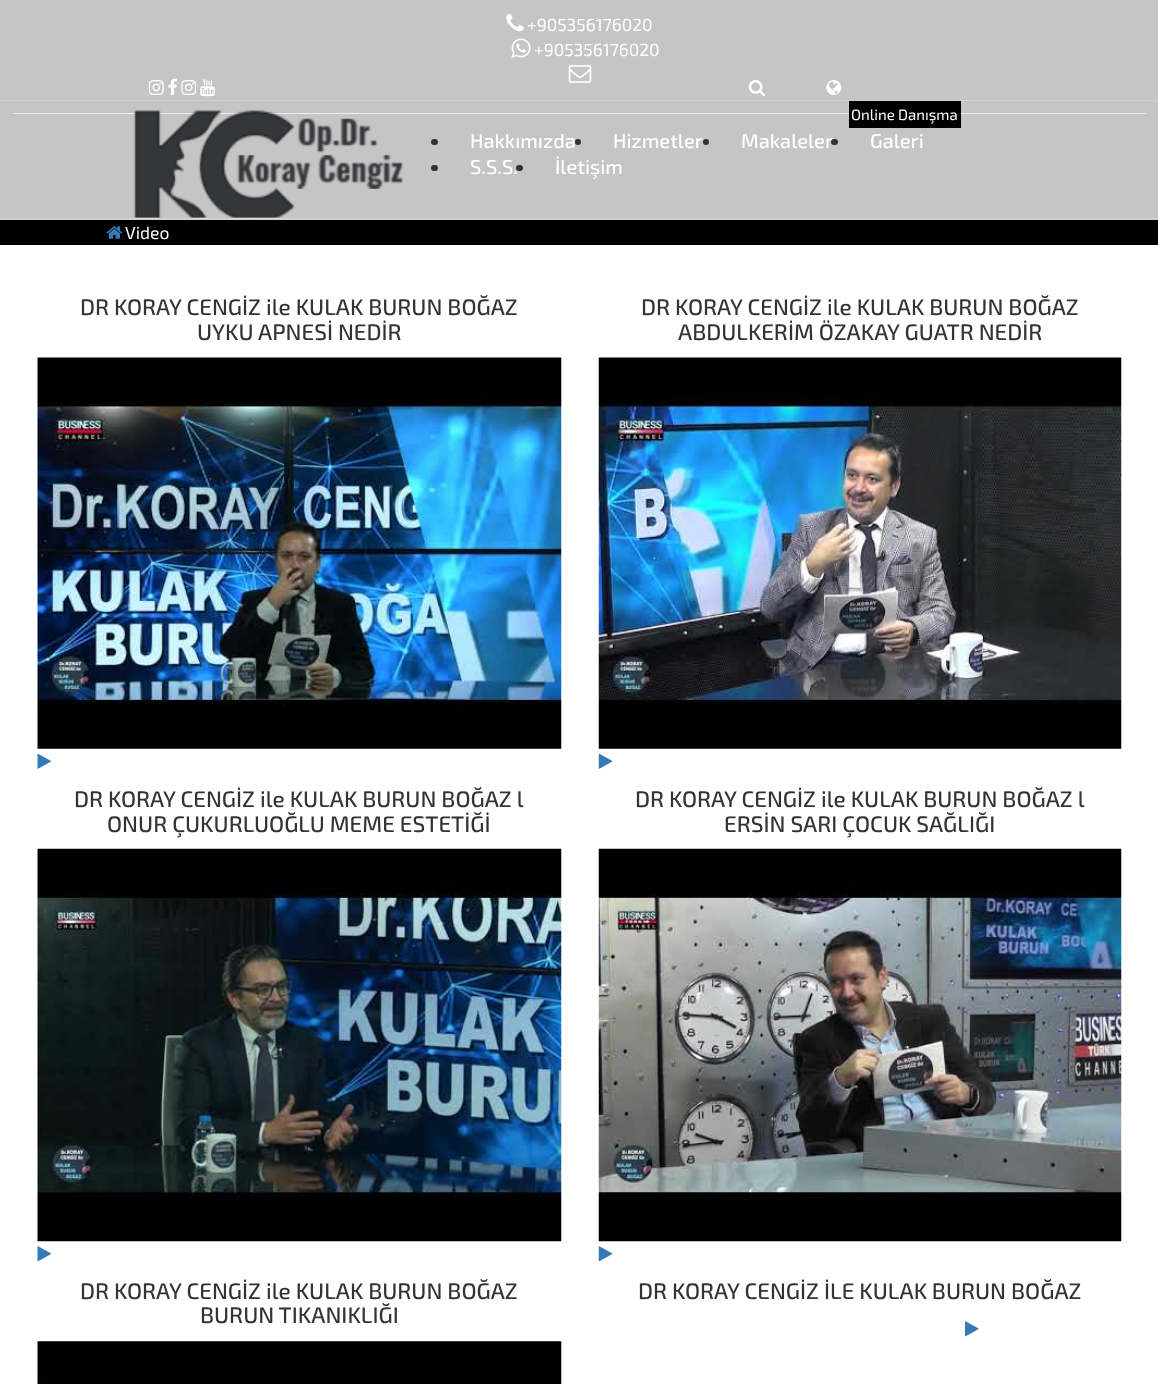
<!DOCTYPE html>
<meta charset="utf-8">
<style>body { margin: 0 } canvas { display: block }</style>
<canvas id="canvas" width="1158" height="1384"></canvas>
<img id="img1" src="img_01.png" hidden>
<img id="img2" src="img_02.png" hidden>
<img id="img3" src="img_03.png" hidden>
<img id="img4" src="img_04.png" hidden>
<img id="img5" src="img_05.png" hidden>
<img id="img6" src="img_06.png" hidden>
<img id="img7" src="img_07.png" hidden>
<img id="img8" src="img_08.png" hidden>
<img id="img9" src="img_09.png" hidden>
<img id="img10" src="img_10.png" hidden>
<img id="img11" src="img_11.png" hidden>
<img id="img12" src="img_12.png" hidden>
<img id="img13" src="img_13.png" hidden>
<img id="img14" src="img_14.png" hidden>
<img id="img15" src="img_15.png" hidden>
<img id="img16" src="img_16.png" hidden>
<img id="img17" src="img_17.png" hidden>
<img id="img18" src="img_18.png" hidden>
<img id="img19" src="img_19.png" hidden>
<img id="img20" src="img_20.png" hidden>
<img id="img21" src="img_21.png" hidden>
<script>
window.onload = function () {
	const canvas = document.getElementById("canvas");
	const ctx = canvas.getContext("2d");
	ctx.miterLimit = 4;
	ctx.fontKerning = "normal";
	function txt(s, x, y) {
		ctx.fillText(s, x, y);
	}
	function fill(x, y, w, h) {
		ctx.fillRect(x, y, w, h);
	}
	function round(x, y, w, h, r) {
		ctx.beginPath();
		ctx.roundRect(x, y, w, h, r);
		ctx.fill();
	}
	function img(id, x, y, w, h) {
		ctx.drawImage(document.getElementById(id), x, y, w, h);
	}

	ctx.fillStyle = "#FFFFFF";
	fill(0, 0, 1158, 1384);
	ctx.fillStyle = "#C5C5C5";
	fill(0, 0, 1158, 218);
	ctx.fillStyle = "#D1D1D1";
	fill(0, 218, 1158, 2);
	img("img1", 506, 13, 18, 19);
	img("img2", 511, 38, 20, 20);
	img("img3", 568, 65, 24, 18);
	ctx.fillStyle = "#EEEEEE";
	fill(13, 113, 1133, 1);
	img("img4", 148, 80, 16, 15);
	img("img5", 168, 78, 9, 17);
	img("img6", 181, 80, 16, 15);
	img("img7", 200, 78, 15, 19);
	img("img8", 748, 80, 17, 17);
	img("img9", 826, 80, 16, 15);
	ctx.fillStyle = "#D1D1D1";
	fill(0, 100, 1158, 1);
	img("img10", 133, 109, 270, 109);
	ctx.fillStyle = "#000000";
	fill(849, 101, 112, 27);
	ctx.fillStyle = "#333333";
	round(431, 139, 7, 6, 3);
	ctx.beginPath();
	ctx.arc(578, 142, 3, 0, Math.PI * 2);
	ctx.fill();
	ctx.beginPath();
	ctx.arc(706, 142, 3, 0, Math.PI * 2);
	ctx.fill();
	round(431, 165, 7, 6, 3);
	ctx.fillStyle = "#000000";
	fill(0, 220, 1158, 25);
	img("img11", 106, 226, 17, 13);
	img("img12", 37, 357, 525, 392);
	img("img13", 37, 753, 15, 16);
	img("img14", 598, 357, 524, 392);
	img("img15", 598, 753, 15, 16);
	img("img16", 37, 848, 525, 394);
	img("img17", 37, 1246, 15, 16);
	img("img18", 598, 848, 524, 394);
	img("img19", 598, 1246, 15, 16);
	img("img20", 37, 1341, 525, 43);
	img("img21", 965, 1321, 14, 16);
	ctx.font = "17.5px 'Exo 2'";
	ctx.fillStyle = "#FFFFFF";
	txt("+905356176020", 527, 31);
	txt("+905356176020", 534, 56);
	ctx.font = "15px 'Exo 2'";
	txt("Online Danışma", 851, 120);
	ctx.font = "500 20px 'Exo 2'";
	txt("Hakkımızda", 470, 148);
	txt("Hizmetler", 613, 148);
	txt("Makaleler", 741, 148);
	ctx.fillStyle = "#333333";
	round(831, 139, 7, 6, 3);
	ctx.fillStyle = "#FFFFFF";
	txt("Galeri", 870, 148);
	txt("S.S.S.", 470, 174);
	ctx.fillStyle = "#333333";
	round(516, 165, 7, 6, 3);
	ctx.fillStyle = "#FFFFFF";
	txt("İletişim", 555, 174);
	ctx.font = "17.5px 'Exo 2'";
	txt("Video", 125, 239);
	ctx.font = "500 22.5px 'Exo 2'";
	ctx.fillStyle = "#333333";
	txt("DR KORAY CENGİZ ile KULAK BURUN BOĞAZ", 80, 315);
	txt("UYKU APNESİ NEDİR", 197, 340);
	txt("DR KORAY CENGİZ ile KULAK BURUN BOĞAZ", 641, 315);
	txt("ABDULKERİM ÖZAKAY GUATR NEDİR", 678, 340);
	txt("DR KORAY CENGİZ ile KULAK BURUN BOĞAZ l", 74, 807);
	txt("ONUR ÇUKURLUOĞLU MEME ESTETİĞİ", 107, 832);
	txt("DR KORAY CENGİZ ile KULAK BURUN BOĞAZ l", 635, 807);
	txt("ERSİN SARI ÇOCUK SAĞLIĞI", 724, 832);
	txt("DR KORAY CENGİZ ile KULAK BURUN BOĞAZ", 80, 1299);
	txt("BURUN TIKANIKLIĞI", 200, 1323);
	txt("DR KORAY CENGİZ İLE KULAK BURUN BOĞAZ", 638, 1299);
};
</script>
